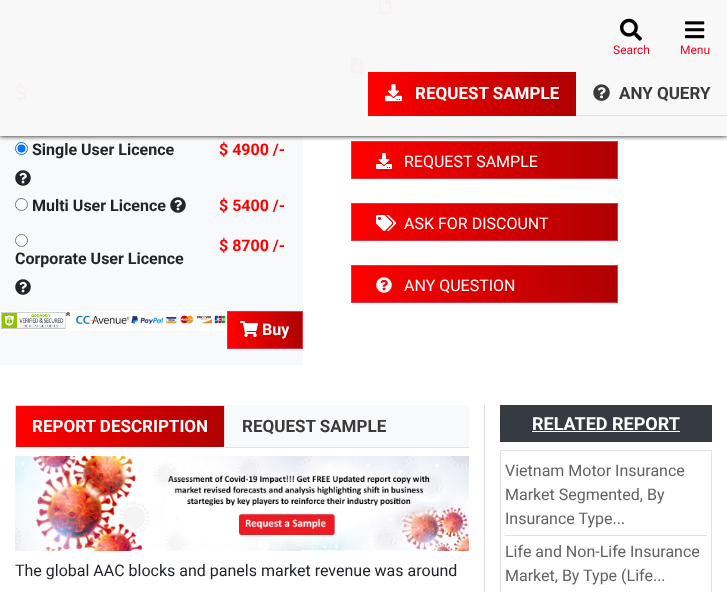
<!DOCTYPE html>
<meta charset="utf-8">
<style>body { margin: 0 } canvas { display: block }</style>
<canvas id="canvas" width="727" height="592"></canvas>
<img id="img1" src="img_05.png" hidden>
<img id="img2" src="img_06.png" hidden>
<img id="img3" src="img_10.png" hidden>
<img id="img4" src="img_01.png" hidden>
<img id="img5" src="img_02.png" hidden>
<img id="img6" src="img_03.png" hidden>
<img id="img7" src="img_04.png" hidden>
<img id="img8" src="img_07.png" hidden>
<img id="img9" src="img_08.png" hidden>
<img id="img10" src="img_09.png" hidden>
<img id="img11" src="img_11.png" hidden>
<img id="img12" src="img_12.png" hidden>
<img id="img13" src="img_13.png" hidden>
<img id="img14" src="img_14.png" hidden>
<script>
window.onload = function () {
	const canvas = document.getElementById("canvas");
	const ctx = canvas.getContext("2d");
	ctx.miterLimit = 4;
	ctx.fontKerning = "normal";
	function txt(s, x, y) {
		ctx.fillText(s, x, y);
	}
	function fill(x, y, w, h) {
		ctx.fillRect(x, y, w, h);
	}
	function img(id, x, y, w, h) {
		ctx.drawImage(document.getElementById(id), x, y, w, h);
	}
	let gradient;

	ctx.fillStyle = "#FFFFFF";
	fill(0, 0, 727, 592);
	ctx.fillStyle = "#F8F8F8";
	fill(0, 0, 727, 136);
	img("img1", 379, 0, 12, 14);
	ctx.fillStyle = "#F8F9FA";
	fill(0, 136, 303, 229);
	img("img2", 15, 82, 12, 21);
	ctx.fillStyle = "#FFFFFF";
	ctx.beginPath();
	ctx.arc(21.5, 148.5, 6, 0, Math.PI * 2);
	ctx.fill();
	ctx.strokeStyle = "#0075FF";
	ctx.stroke();
	ctx.fillStyle = "#0075FF";
	ctx.beginPath();
	ctx.arc(21.5, 148.5, 4, 0, Math.PI * 2);
	ctx.fill();
	img("img3", 351, 58, 12, 16);
	gradient = ctx.createLinearGradient(352, 160, 617, 160);
	gradient.addColorStop(0, "#FF0000");
	gradient.addColorStop(1, "#AF0000");
	ctx.fillStyle = gradient;
	fill(352, 142, 265, 36);
	ctx.strokeStyle = "#DC3545";
	ctx.strokeRect(351.5, 141.5, 266, 37);
	ctx.save();
	ctx.beginPath();
	ctx.rect(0, 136, 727, 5);
	ctx.clip();
	ctx.fillStyle = "#000000";
	ctx.filter = "blur(2.5px)";
	ctx.beginPath();
	ctx.rect(0, 0, 727, 136);
	ctx.fill();
	ctx.filter = "none";
	ctx.restore();
	img("img4", 620, 18, 22, 23);
	img("img5", 685, 21, 20, 18);
	ctx.fillStyle = "#DEE2E6";
	fill(576, 115, 151, 1);
	gradient = ctx.createLinearGradient(368, 94, 576, 94);
	gradient.addColorStop(0, "#FF0000");
	gradient.addColorStop(1, "#AF0000");
	ctx.fillStyle = gradient;
	fill(368, 72, 208, 44);
	img("img6", 385, 84, 17, 18);
	img("img7", 593, 84, 17, 17);
	img("img8", 15, 170, 16, 16);
	ctx.fillStyle = "#FFFFFF";
	ctx.beginPath();
	ctx.arc(21.5, 204.5, 6, 0, Math.PI * 2);
	ctx.fill();
	ctx.strokeStyle = "#767676";
	ctx.stroke();
	img("img8", 170, 197, 16, 16);
	ctx.beginPath();
	ctx.arc(21.5, 240.5, 6, 0, Math.PI * 2);
	ctx.fill();
	ctx.stroke();
	img("img8", 15, 279, 16, 16);
	img("img9", 0, 311, 227, 20);
	gradient = ctx.createLinearGradient(228, 330, 302, 330);
	gradient.addColorStop(0, "#FF0000");
	gradient.addColorStop(1, "#AF0000");
	ctx.fillStyle = gradient;
	fill(228, 312, 74, 36);
	ctx.strokeStyle = "#DC3545";
	ctx.strokeRect(227.5, 311.5, 75, 37);
	img("img10", 240, 321, 18, 16);
	img("img11", 376, 153, 16, 16);
	gradient = ctx.createLinearGradient(352, 222, 617, 222);
	gradient.addColorStop(0, "#FF0000");
	gradient.addColorStop(1, "#AF0000");
	ctx.fillStyle = gradient;
	fill(352, 204, 265, 36);
	ctx.strokeRect(351.5, 203.5, 266, 37);
	img("img12", 376, 215, 20, 16);
	gradient = ctx.createLinearGradient(352, 284, 617, 284);
	gradient.addColorStop(0, "#FF0000");
	gradient.addColorStop(1, "#AF0000");
	ctx.fillStyle = gradient;
	fill(352, 266, 265, 36);
	ctx.strokeRect(351.5, 265.5, 266, 37);
	img("img13", 376, 277, 16, 16);
	ctx.fillStyle = "#DEE2E6";
	fill(484, 405, 1, 187);
	ctx.fillStyle = "#F8F9FA";
	fill(225, 405, 244, 42);
	ctx.fillStyle = "#DEE2E6";
	fill(225, 447, 244, 1);
	gradient = ctx.createLinearGradient(16, 427, 224, 427);
	gradient.addColorStop(0, "#FF0000");
	gradient.addColorStop(1, "#AF0000");
	ctx.fillStyle = gradient;
	fill(16, 406, 208, 41);
	ctx.fillStyle = "#DEE2E6";
	fill(15, 405, 210, 1);
	fill(224, 405, 1, 43);
	ctx.fillStyle = "#FFFFFF";
	fill(224, 447, 1, 1);
	ctx.fillStyle = "#DEE2E6";
	fill(15, 405, 1, 43);
	img("img14", 15, 456, 454, 95);
	ctx.fillStyle = "#343A40";
	fill(500, 405, 212, 37);
	ctx.fillStyle = "#FFFFFF";
	fill(532, 431, 148, 1);
	ctx.strokeStyle = "#DEE2E6";
	ctx.strokeRect(500.5, 450.5, 211, 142);
	ctx.fillStyle = "#DEE2E6";
	fill(505, 535, 202, 1);
	ctx.font = "12px Roboto";
	ctx.fillStyle = "#EF001F";
	txt("Search", 613, 54);
	txt("Menu", 680, 54);
	ctx.font = "bold 17px Roboto";
	ctx.fillStyle = "#FFFFFF";
	txt("REQUEST SAMPLE", 415, 99);
	ctx.fillStyle = "#3B3939";
	txt("ANY QUERY", 619, 99);
	ctx.font = "bold 16px Roboto";
	ctx.fillStyle = "#212529";
	txt("Single User Licence", 32, 155);
	ctx.fillStyle = "#FF0000";
	txt("$ 4900 /-", 219, 155);
	ctx.fillStyle = "#212529";
	txt("Multi User Licence", 32, 211);
	ctx.fillStyle = "#FF0000";
	txt("$ 5400 /-", 219, 211);
	txt("$ 8700 /-", 219, 251);
	ctx.fillStyle = "#212529";
	txt("Corporate User Licence", 15, 264);
	ctx.fillStyle = "#FFFFFF";
	txt("Buy", 262, 335);
	ctx.font = "16px Roboto";
	txt("REQUEST SAMPLE", 404, 167);
	txt("ASK FOR DISCOUNT", 404, 229);
	txt("ANY QUESTION", 404, 291);
	ctx.font = "bold 17px Roboto";
	txt("REPORT DESCRIPTION", 32, 432);
	ctx.fillStyle = "#3B3939";
	txt("REQUEST SAMPLE", 242, 432);
	ctx.font = "16px Roboto";
	ctx.fillStyle = "#212529";
	txt("The global AAC blocks and panels market revenue was around", 15, 576);
	ctx.font = "bold 18px Roboto";
	ctx.fillStyle = "#FFFFFF";
	txt("RELATED REPORT", 532, 430);
	ctx.font = "16px Roboto";
	ctx.fillStyle = "#626262";
	txt("Vietnam Motor Insurance", 505, 476);
	txt("Market Segmented, By", 505, 500);
	txt("Insurance Type...", 505, 524);
	txt("Life and Non-Life Insurance", 505, 557);
	txt("Market, By Type (Life...", 505, 581);
};
</script>
